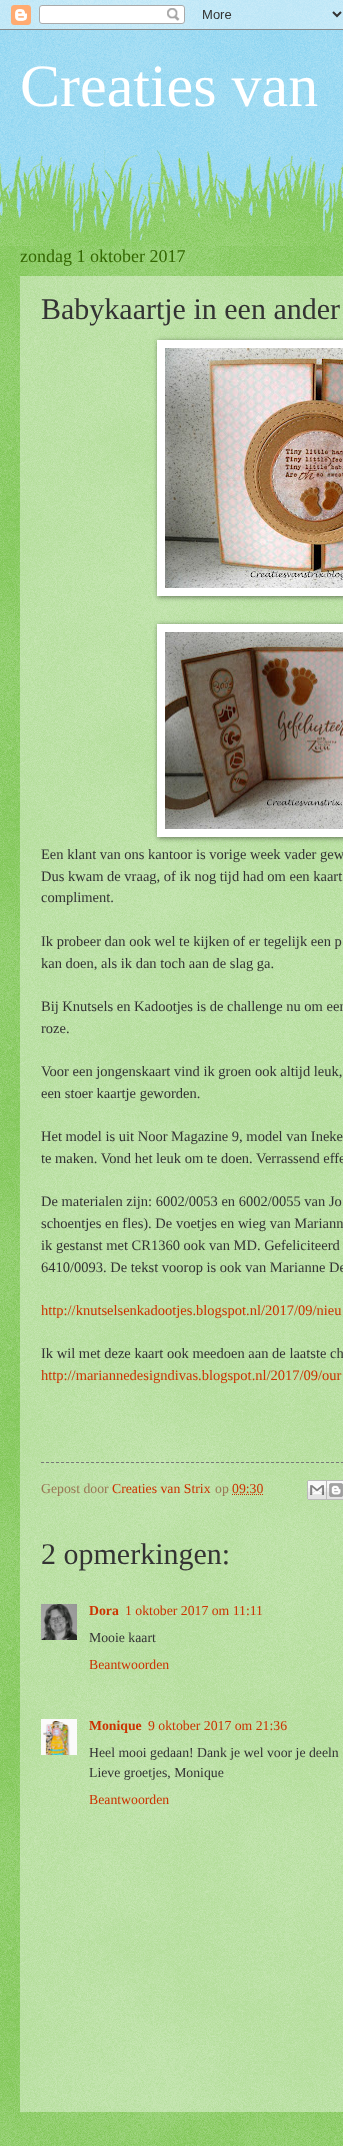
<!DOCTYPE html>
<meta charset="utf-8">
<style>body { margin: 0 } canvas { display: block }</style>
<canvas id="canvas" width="343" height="2146"></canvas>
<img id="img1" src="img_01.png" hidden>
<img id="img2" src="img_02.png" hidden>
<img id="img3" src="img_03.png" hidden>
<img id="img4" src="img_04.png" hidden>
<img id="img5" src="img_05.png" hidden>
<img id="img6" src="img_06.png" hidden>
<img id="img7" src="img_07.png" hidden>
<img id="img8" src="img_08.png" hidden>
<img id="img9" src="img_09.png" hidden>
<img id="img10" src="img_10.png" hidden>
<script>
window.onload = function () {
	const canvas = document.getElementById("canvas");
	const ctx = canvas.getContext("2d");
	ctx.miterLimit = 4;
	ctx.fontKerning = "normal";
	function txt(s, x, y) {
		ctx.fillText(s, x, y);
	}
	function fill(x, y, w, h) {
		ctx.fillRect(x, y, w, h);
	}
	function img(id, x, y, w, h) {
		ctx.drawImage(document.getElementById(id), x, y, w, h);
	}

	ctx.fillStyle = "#77CCEE";
	fill(0, 0, 343, 2146);
	img("img1", 0, 0, 343, 241);
	img("img2", 0, 0, 343, 30);
	ctx.fillStyle = "#66BB33";
	fill(0, 246, 343, 1900);
	img("img3", 0, 246, 343, 1900);
	img("img4", 0, 150, 343, 96);
	ctx.fillStyle = "rgba(255, 255, 255, 0.4)";
	fill(20, 276, 323, 1836);
	ctx.fillStyle = "rgba(0, 0, 0, 0.5)";
	ctx.filter = "blur(2.5px)";
	ctx.beginPath();
	ctx.rect(158, 341, 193, 256);
	ctx.fill();
	ctx.filter = "none";
	ctx.fillStyle = "#FFFFFF";
	fill(157, 340, 186, 256);
	img("img5", 165, 348, 178, 240);
	ctx.fillStyle = "rgba(0, 0, 0, 0.5)";
	ctx.filter = "blur(2.5px)";
	ctx.beginPath();
	ctx.rect(158, 625, 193, 213);
	ctx.fill();
	ctx.filter = "none";
	ctx.fillStyle = "#FFFFFF";
	fill(157, 624, 186, 213);
	img("img6", 165, 632, 178, 197);
	ctx.beginPath();
	ctx.moveTo(41, 1462.5);
	ctx.lineTo(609, 1462.5);
	ctx.strokeStyle = "#777777";
	ctx.setLineDash([3, 2]);
	ctx.stroke();
	ctx.beginPath();
	ctx.moveTo(232, 1494.5);
	ctx.lineTo(263.5, 1494.5);
	ctx.strokeStyle = "#CC3300";
	ctx.setLineDash([1, 1]);
	ctx.stroke();
	img("img7", 307, 1480, 20, 20);
	img("img8", 327, 1480, 16, 20);
	img("img9", 41, 1604, 36, 36);
	img("img10", 41, 1719, 36, 36);
	ctx.font = "60px Liberation Serif";
	txt("Creaties van", 20, 106);
	ctx.font = "18px Liberation Serif";
	ctx.fillStyle = "#336600";
	txt("zondag 1 oktober 2017", 20, 262);
	ctx.font = "30px Liberation Serif";
	ctx.fillStyle = "#333333";
	txt("Babykaartje in een ander", 41, 319);
	ctx.font = "14.5px Liberation Serif";
	txt("Een klant van ons kantoor is vorige week vader gew", 41, 859);
	txt("Dus kwam de vraag, of ik nog tijd had om een kaart", 41, 881);
	txt("compliment.", 41, 902);
	txt("Ik probeer dan ook wel te kijken of er tegelijk een p", 41, 946);
	txt("kan doen, als ik dan toch aan de slag ga.", 41, 968);
	txt("Bij Knutsels en Kadootjes is de challenge nu om een", 41, 1011);
	txt("roze.", 41, 1033);
	txt("Voor een jongenskaart vind ik groen ook altijd leuk,", 41, 1076);
	txt("een stoer kaartje geworden.", 41, 1098);
	txt("Het model is uit Noor Magazine 9, model van Ineke", 41, 1141);
	txt("te maken. Vond het leuk om te doen. Verrassend effe", 41, 1163);
	txt("De materialen zijn: 6002/0053 en 6002/0055 van Jo", 41, 1206);
	txt("schoentjes en fles). De voetjes en wieg van Mariann", 41, 1228);
	txt("ik gestanst met CR1360 ook van MD. Gefeliciteerd", 41, 1250);
	txt("6410/0093. De tekst voorop is ook van Marianne De", 41, 1272);
	ctx.fillStyle = "#CC3300";
	txt("http://knutselsenkadootjes.blogspot.nl/2017/09/nieu", 41, 1315);
	ctx.fillStyle = "#333333";
	txt("Ik wil met deze kaart ook meedoen aan de laatste ch", 41, 1358);
	ctx.fillStyle = "#CC3300";
	txt("http://mariannedesigndivas.blogspot.nl/2017/09/our", 41, 1380);
	ctx.font = "13.75px Liberation Serif";
	ctx.fillStyle = "#997755";
	txt("Gepost door", 41, 1493);
	ctx.fillStyle = "#CC3300";
	txt("Creaties van Strix", 112, 1493);
	ctx.fillStyle = "#997755";
	txt("op", 215, 1493);
	ctx.fillStyle = "#CC3300";
	txt("09:30", 232, 1493);
	ctx.font = "30px Liberation Serif";
	ctx.fillStyle = "#333333";
	txt("2 opmerkingen:", 41, 1564);
	ctx.font = "bold 13.75px Liberation Serif";
	ctx.fillStyle = "#CC3300";
	txt("Dora", 89, 1615);
	ctx.font = "13.75px Liberation Serif";
	txt("1 oktober 2017 om 11:11", 125, 1615);
	ctx.fillStyle = "#333333";
	txt("Mooie kaart", 89, 1642);
	ctx.fillStyle = "#CC3300";
	txt("Beantwoorden", 89, 1669);
	ctx.font = "bold 13.75px Liberation Serif";
	txt("Monique", 89, 1730);
	ctx.font = "13.75px Liberation Serif";
	txt("9 oktober 2017 om 21:36", 148, 1730);
	ctx.fillStyle = "#333333";
	txt("Heel mooi gedaan! Dank je wel voor je deeln", 89, 1757);
	txt("Lieve groetjes, Monique", 89, 1777);
	ctx.fillStyle = "#CC3300";
	txt("Beantwoorden", 89, 1804);
};
</script>
